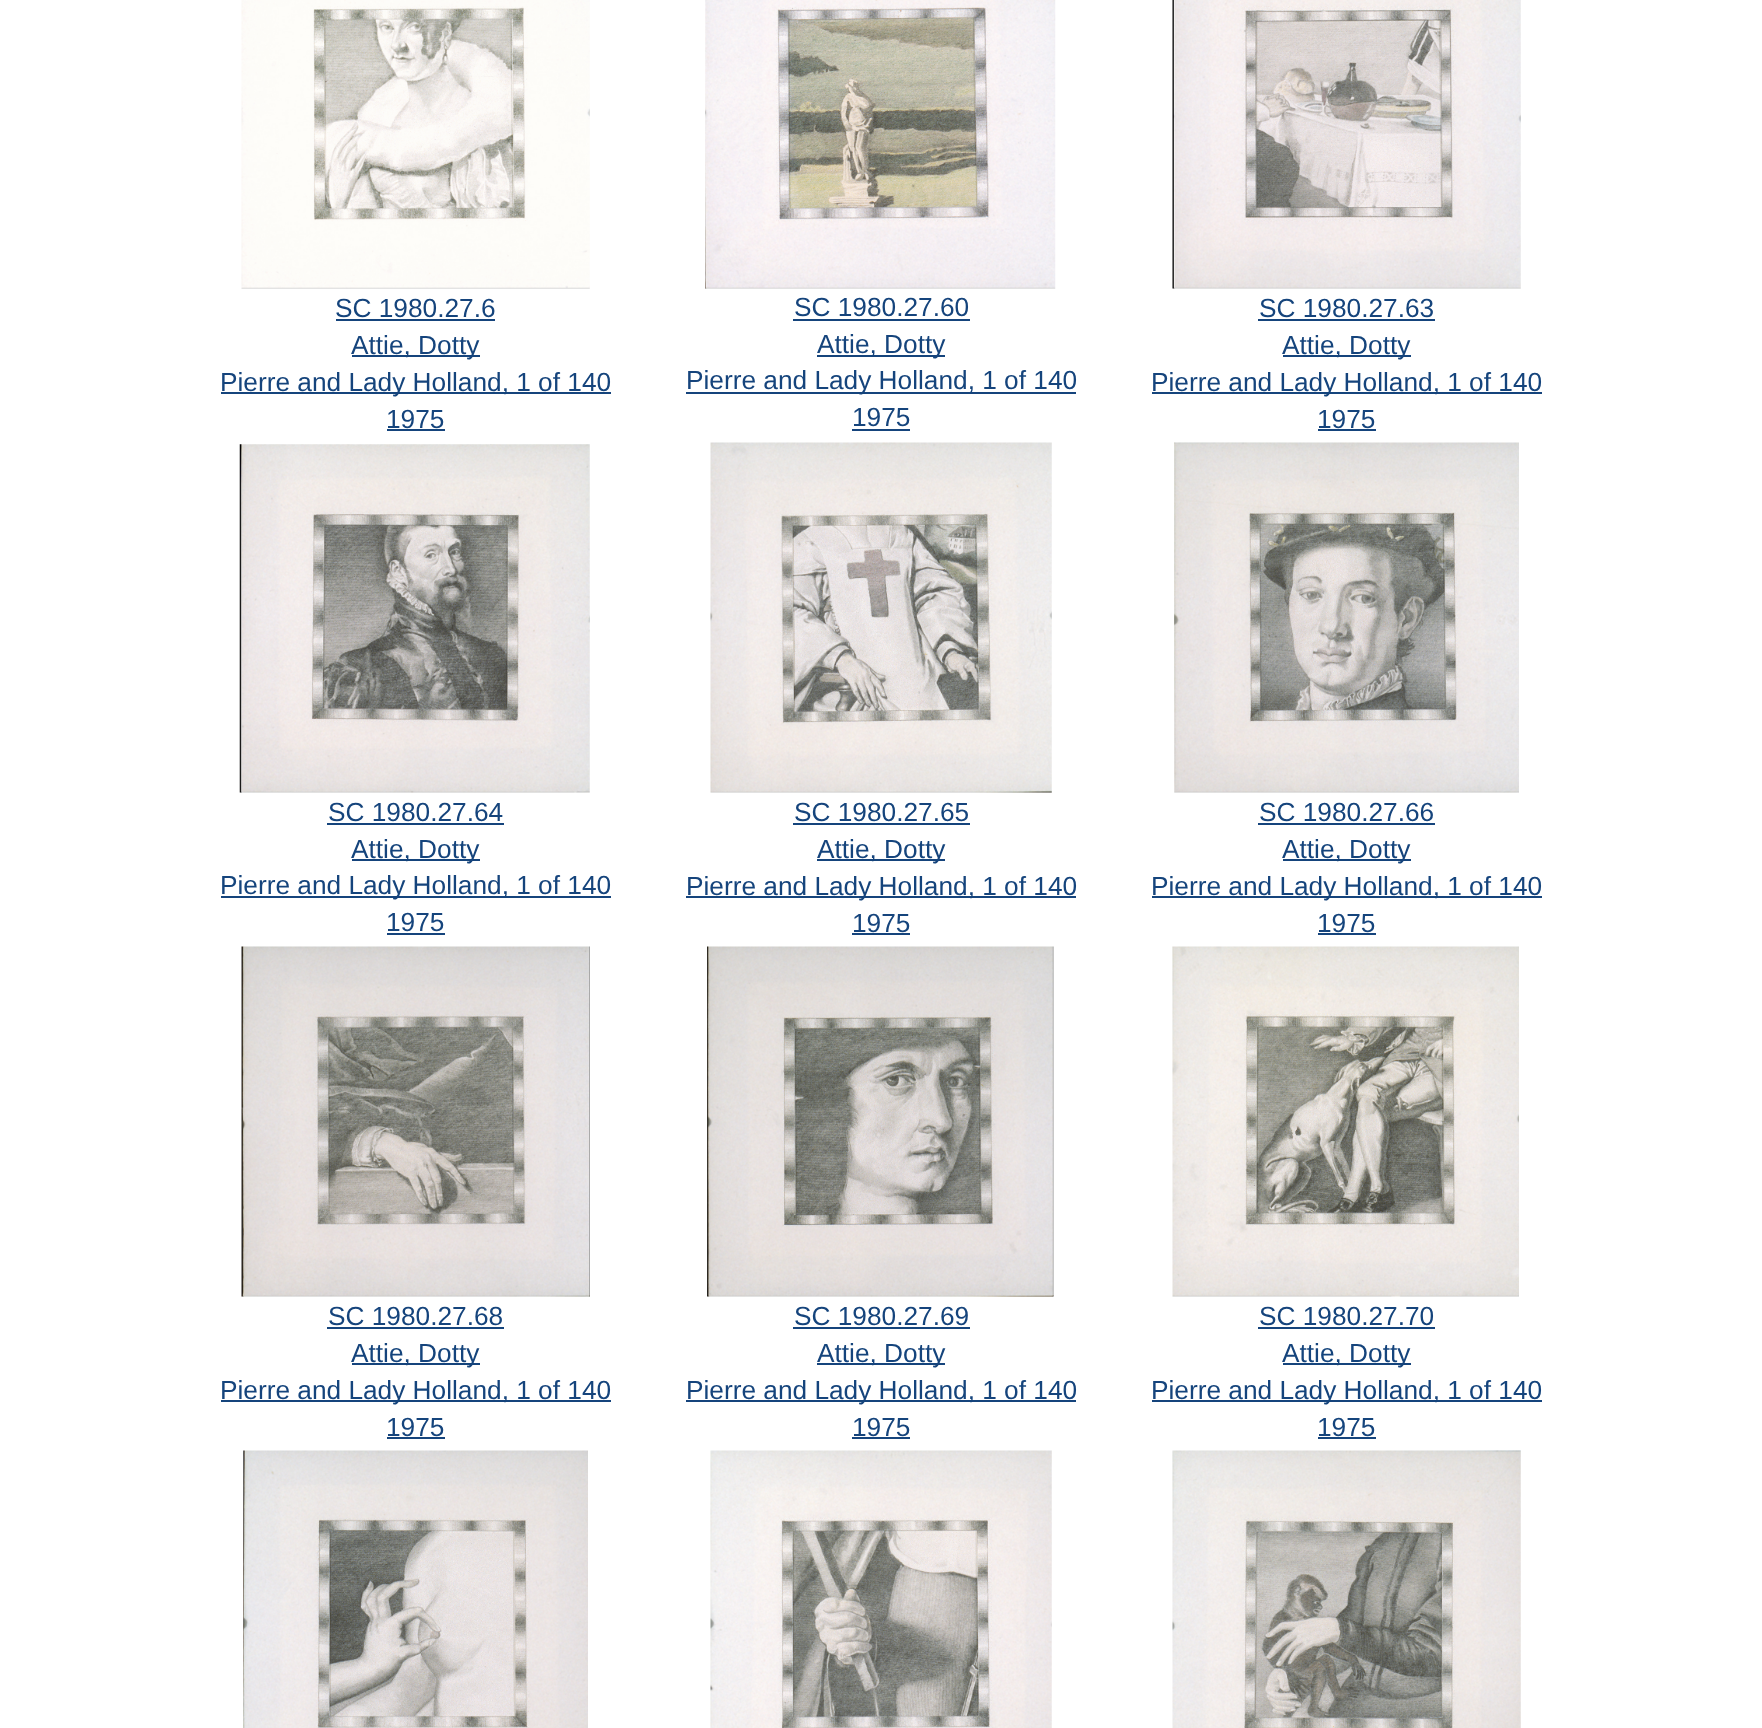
<!DOCTYPE html>
<meta charset="utf-8">
<style>body { margin: 0 } canvas { display: block }</style>
<canvas id="canvas" width="1762" height="1728"></canvas>
<img id="img1" src="img_01.png" hidden>
<img id="img2" src="img_02.png" hidden>
<img id="img3" src="img_03.png" hidden>
<img id="img4" src="img_04.png" hidden>
<img id="img5" src="img_05.png" hidden>
<img id="img6" src="img_06.png" hidden>
<img id="img7" src="img_07.png" hidden>
<img id="img8" src="img_08.png" hidden>
<img id="img9" src="img_09.png" hidden>
<img id="img10" src="img_10.png" hidden>
<img id="img11" src="img_11.png" hidden>
<img id="img12" src="img_12.png" hidden>
<script>
window.onload = function () {
	const canvas = document.getElementById("canvas");
	const ctx = canvas.getContext("2d");
	ctx.miterLimit = 4;
	ctx.fontKerning = "normal";
	function txt(s, x, y) {
		ctx.fillText(s, x, y);
	}
	function fill(x, y, w, h) {
		ctx.fillRect(x, y, w, h);
	}
	function img(id, x, y, w, h) {
		ctx.drawImage(document.getElementById(id), x, y, w, h);
	}

	ctx.fillStyle = "#FFFFFF";
	fill(0, 0, 1762, 1728);
	img("img1", 241, 0, 349, 289);
	ctx.fillStyle = "#15447C";
	fill(336, 319, 159, 2);
	fill(352, 355, 128, 2);
	fill(221, 392, 390, 2);
	fill(387, 429, 58, 2);
	img("img2", 705, 0, 351, 289);
	fill(793, 319, 177, 2);
	fill(817, 355, 128, 2);
	fill(686, 392, 390, 2);
	fill(852, 429, 58, 2);
	img("img3", 1172, 0, 349, 289);
	fill(1258, 319, 177, 2);
	fill(1283, 355, 128, 2);
	fill(1152, 392, 390, 2);
	fill(1318, 429, 58, 2);
	img("img4", 239, 444, 351, 349);
	fill(327, 823, 177, 2);
	fill(352, 859, 128, 2);
	fill(221, 896, 390, 2);
	fill(387, 933, 58, 2);
	img("img5", 710, 442, 342, 351);
	fill(793, 823, 177, 2);
	fill(817, 859, 128, 2);
	fill(686, 896, 390, 2);
	fill(852, 933, 58, 2);
	img("img6", 1174, 442, 345, 351);
	fill(1258, 823, 177, 2);
	fill(1283, 859, 128, 2);
	fill(1152, 896, 390, 2);
	fill(1318, 933, 58, 2);
	img("img7", 241, 946, 349, 351);
	fill(327, 1327, 177, 2);
	fill(352, 1363, 128, 2);
	fill(221, 1400, 390, 2);
	fill(387, 1437, 58, 2);
	img("img8", 707, 946, 347, 351);
	fill(793, 1327, 177, 2);
	fill(817, 1363, 128, 2);
	fill(686, 1400, 390, 2);
	fill(852, 1437, 58, 2);
	img("img9", 1172, 946, 347, 351);
	fill(1258, 1327, 177, 2);
	fill(1283, 1363, 128, 2);
	fill(1152, 1400, 390, 2);
	fill(1318, 1437, 58, 2);
	img("img10", 243, 1450, 345, 278);
	img("img11", 710, 1450, 342, 278);
	img("img12", 1172, 1450, 349, 278);
	ctx.font = "26.25px Liberation Sans";
	txt("SC 1980.27.6", 335, 317);
	txt("Attie, Dotty", 351, 354);
	txt("Pierre and Lady Holland, 1 of 140", 220, 391);
	txt("1975", 386, 428);
	txt("SC 1980.27.60", 794, 316);
	txt("Attie, Dotty", 817, 353);
	txt("Pierre and Lady Holland, 1 of 140", 686, 389);
	txt("1975", 852, 426);
	txt("SC 1980.27.63", 1259, 317);
	txt("Attie, Dotty", 1282, 354);
	txt("Pierre and Lady Holland, 1 of 140", 1151, 391);
	txt("1975", 1317, 428);
	txt("SC 1980.27.64", 328, 821);
	txt("Attie, Dotty", 351, 858);
	txt("Pierre and Lady Holland, 1 of 140", 220, 894);
	txt("1975", 386, 931);
	txt("SC 1980.27.65", 794, 821);
	txt("Attie, Dotty", 817, 858);
	txt("Pierre and Lady Holland, 1 of 140", 686, 895);
	txt("1975", 852, 932);
	txt("SC 1980.27.66", 1259, 821);
	txt("Attie, Dotty", 1282, 858);
	txt("Pierre and Lady Holland, 1 of 140", 1151, 895);
	txt("1975", 1317, 932);
	txt("SC 1980.27.68", 328, 1325);
	txt("Attie, Dotty", 351, 1362);
	txt("Pierre and Lady Holland, 1 of 140", 220, 1399);
	txt("1975", 386, 1436);
	txt("SC 1980.27.69", 794, 1325);
	txt("Attie, Dotty", 817, 1362);
	txt("Pierre and Lady Holland, 1 of 140", 686, 1399);
	txt("1975", 852, 1436);
	txt("SC 1980.27.70", 1259, 1325);
	txt("Attie, Dotty", 1282, 1362);
	txt("Pierre and Lady Holland, 1 of 140", 1151, 1399);
	txt("1975", 1317, 1436);
};
</script>
